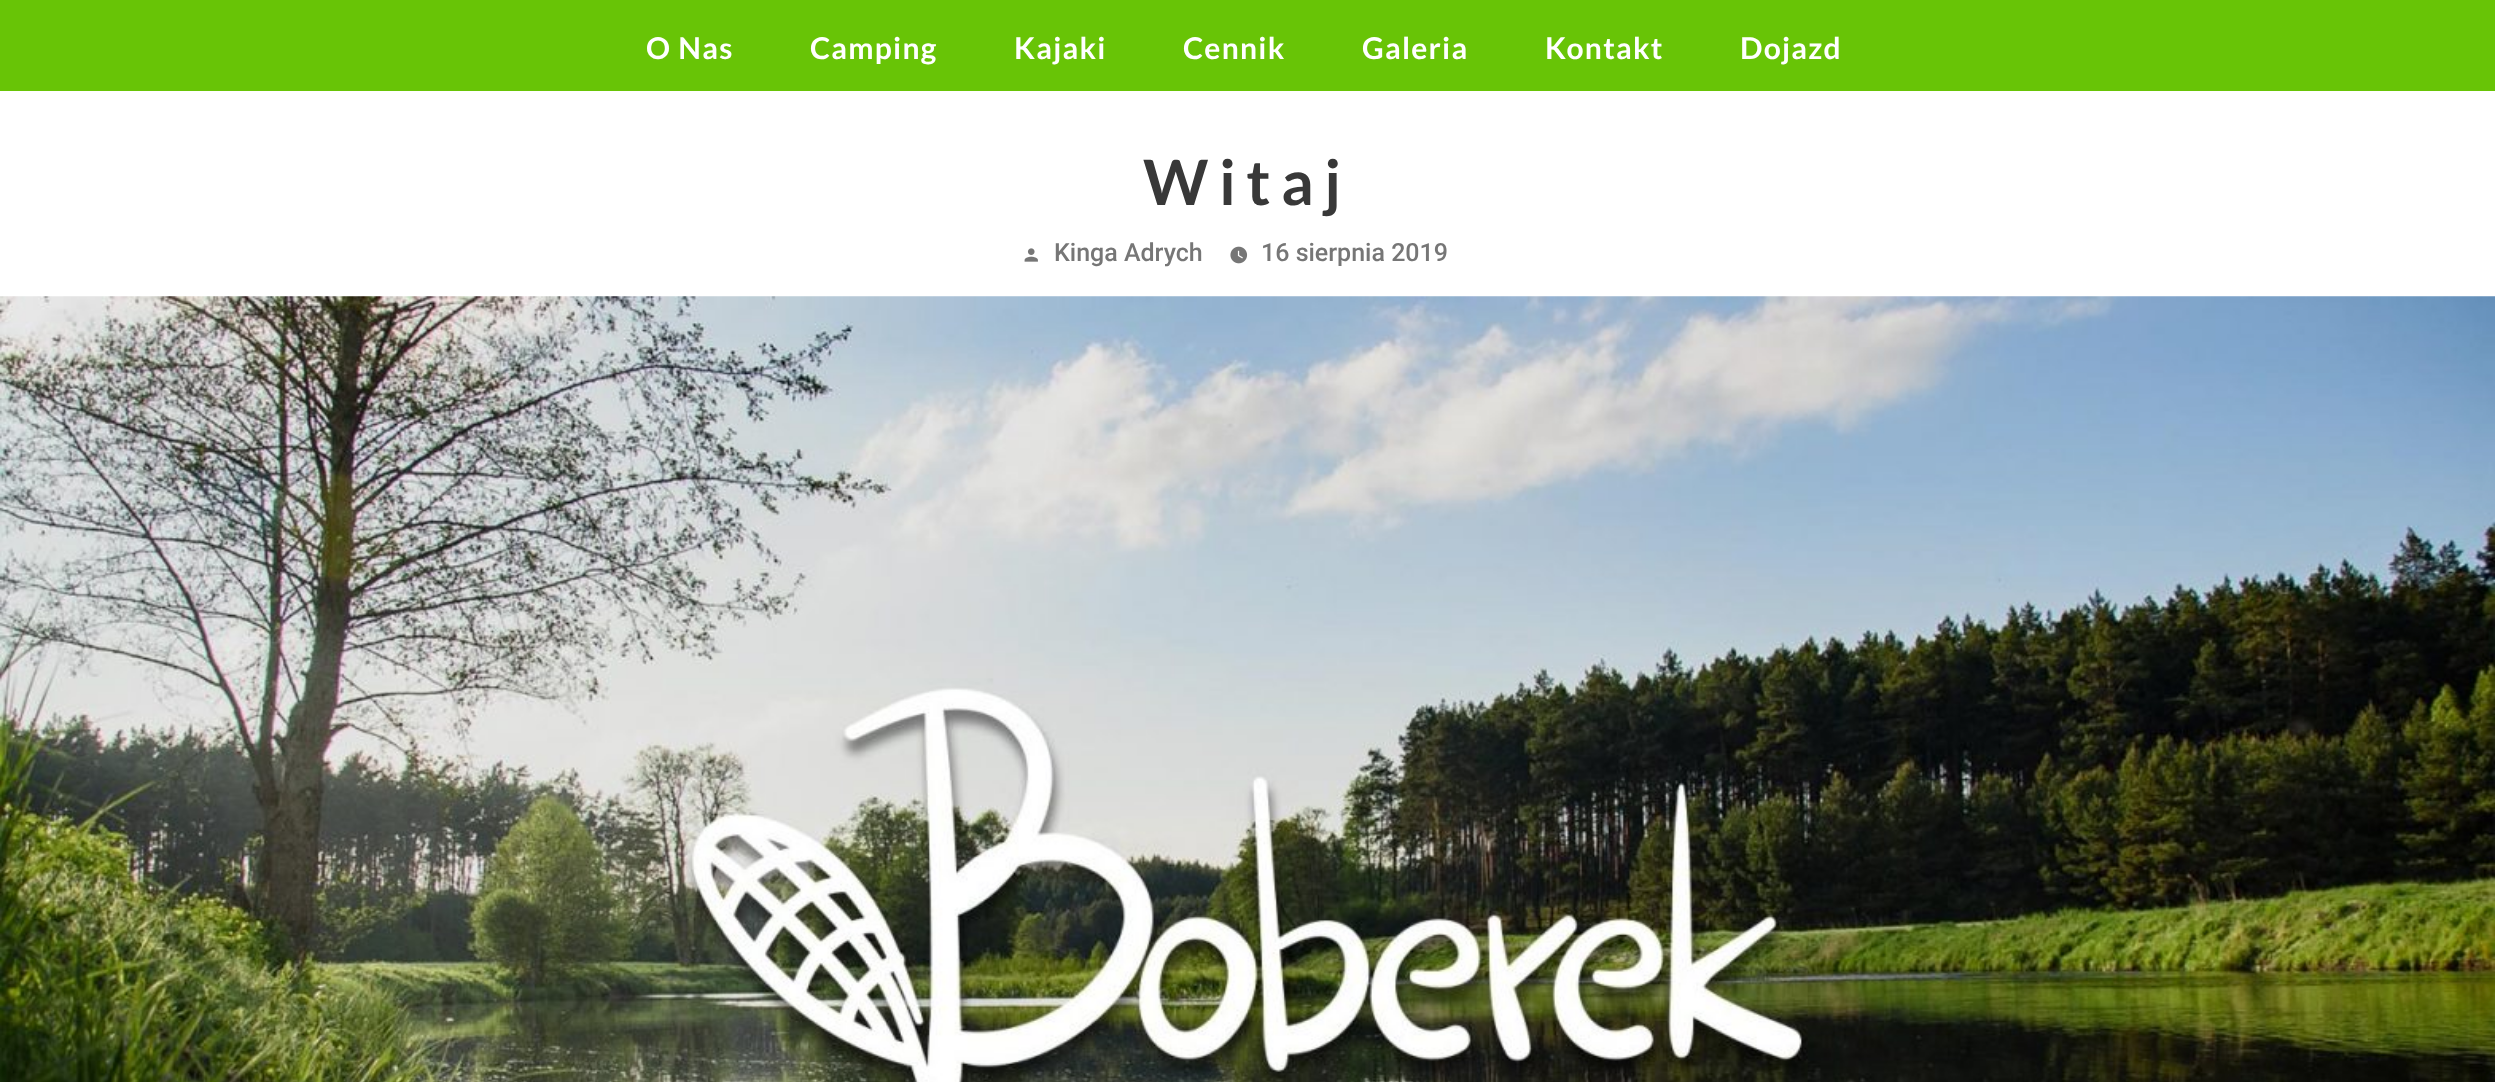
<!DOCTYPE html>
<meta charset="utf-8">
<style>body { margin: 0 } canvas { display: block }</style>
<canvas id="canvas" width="2495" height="1082"></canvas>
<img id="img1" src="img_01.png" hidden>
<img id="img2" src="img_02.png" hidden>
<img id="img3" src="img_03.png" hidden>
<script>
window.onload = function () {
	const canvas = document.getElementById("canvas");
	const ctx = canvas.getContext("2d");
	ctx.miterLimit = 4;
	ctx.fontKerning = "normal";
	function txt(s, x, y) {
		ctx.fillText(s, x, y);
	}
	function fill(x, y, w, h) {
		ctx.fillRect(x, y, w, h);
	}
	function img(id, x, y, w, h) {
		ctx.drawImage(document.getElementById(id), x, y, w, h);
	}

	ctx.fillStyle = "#FFFFFF";
	fill(0, 0, 2495, 1082);
	ctx.fillStyle = "#68C406";
	fill(0, 0, 2495, 91);
	img("img1", 1024, 248, 14, 14);
	img("img2", 1230, 246, 18, 18);
	img("img3", 0, 296, 2495, 786);
	ctx.letterSpacing = "1.25px";
	ctx.font = "bold 30px Lato";
	ctx.fillStyle = "#FFFFFF";
	txt("O Nas", 646, 59);
	txt("Camping", 810, 59);
	txt("Kajaki", 1014, 59);
	txt("Cennik", 1183, 59);
	txt("Galeria", 1362, 59);
	txt("Kontakt", 1545, 59);
	txt("Dojazd", 1740, 59);
	ctx.letterSpacing = "10.5px";
	ctx.font = "bold 62.5px Lato";
	ctx.fillStyle = "#383838";
	txt("Witaj", 1143, 205);
	ctx.letterSpacing = "0px";
	ctx.font = "500 25px Roboto";
	ctx.fillStyle = "#767676";
	txt("Kinga Adrych", 1054, 261);
	txt("16 sierpnia 2019", 1261, 261);
};
</script>
